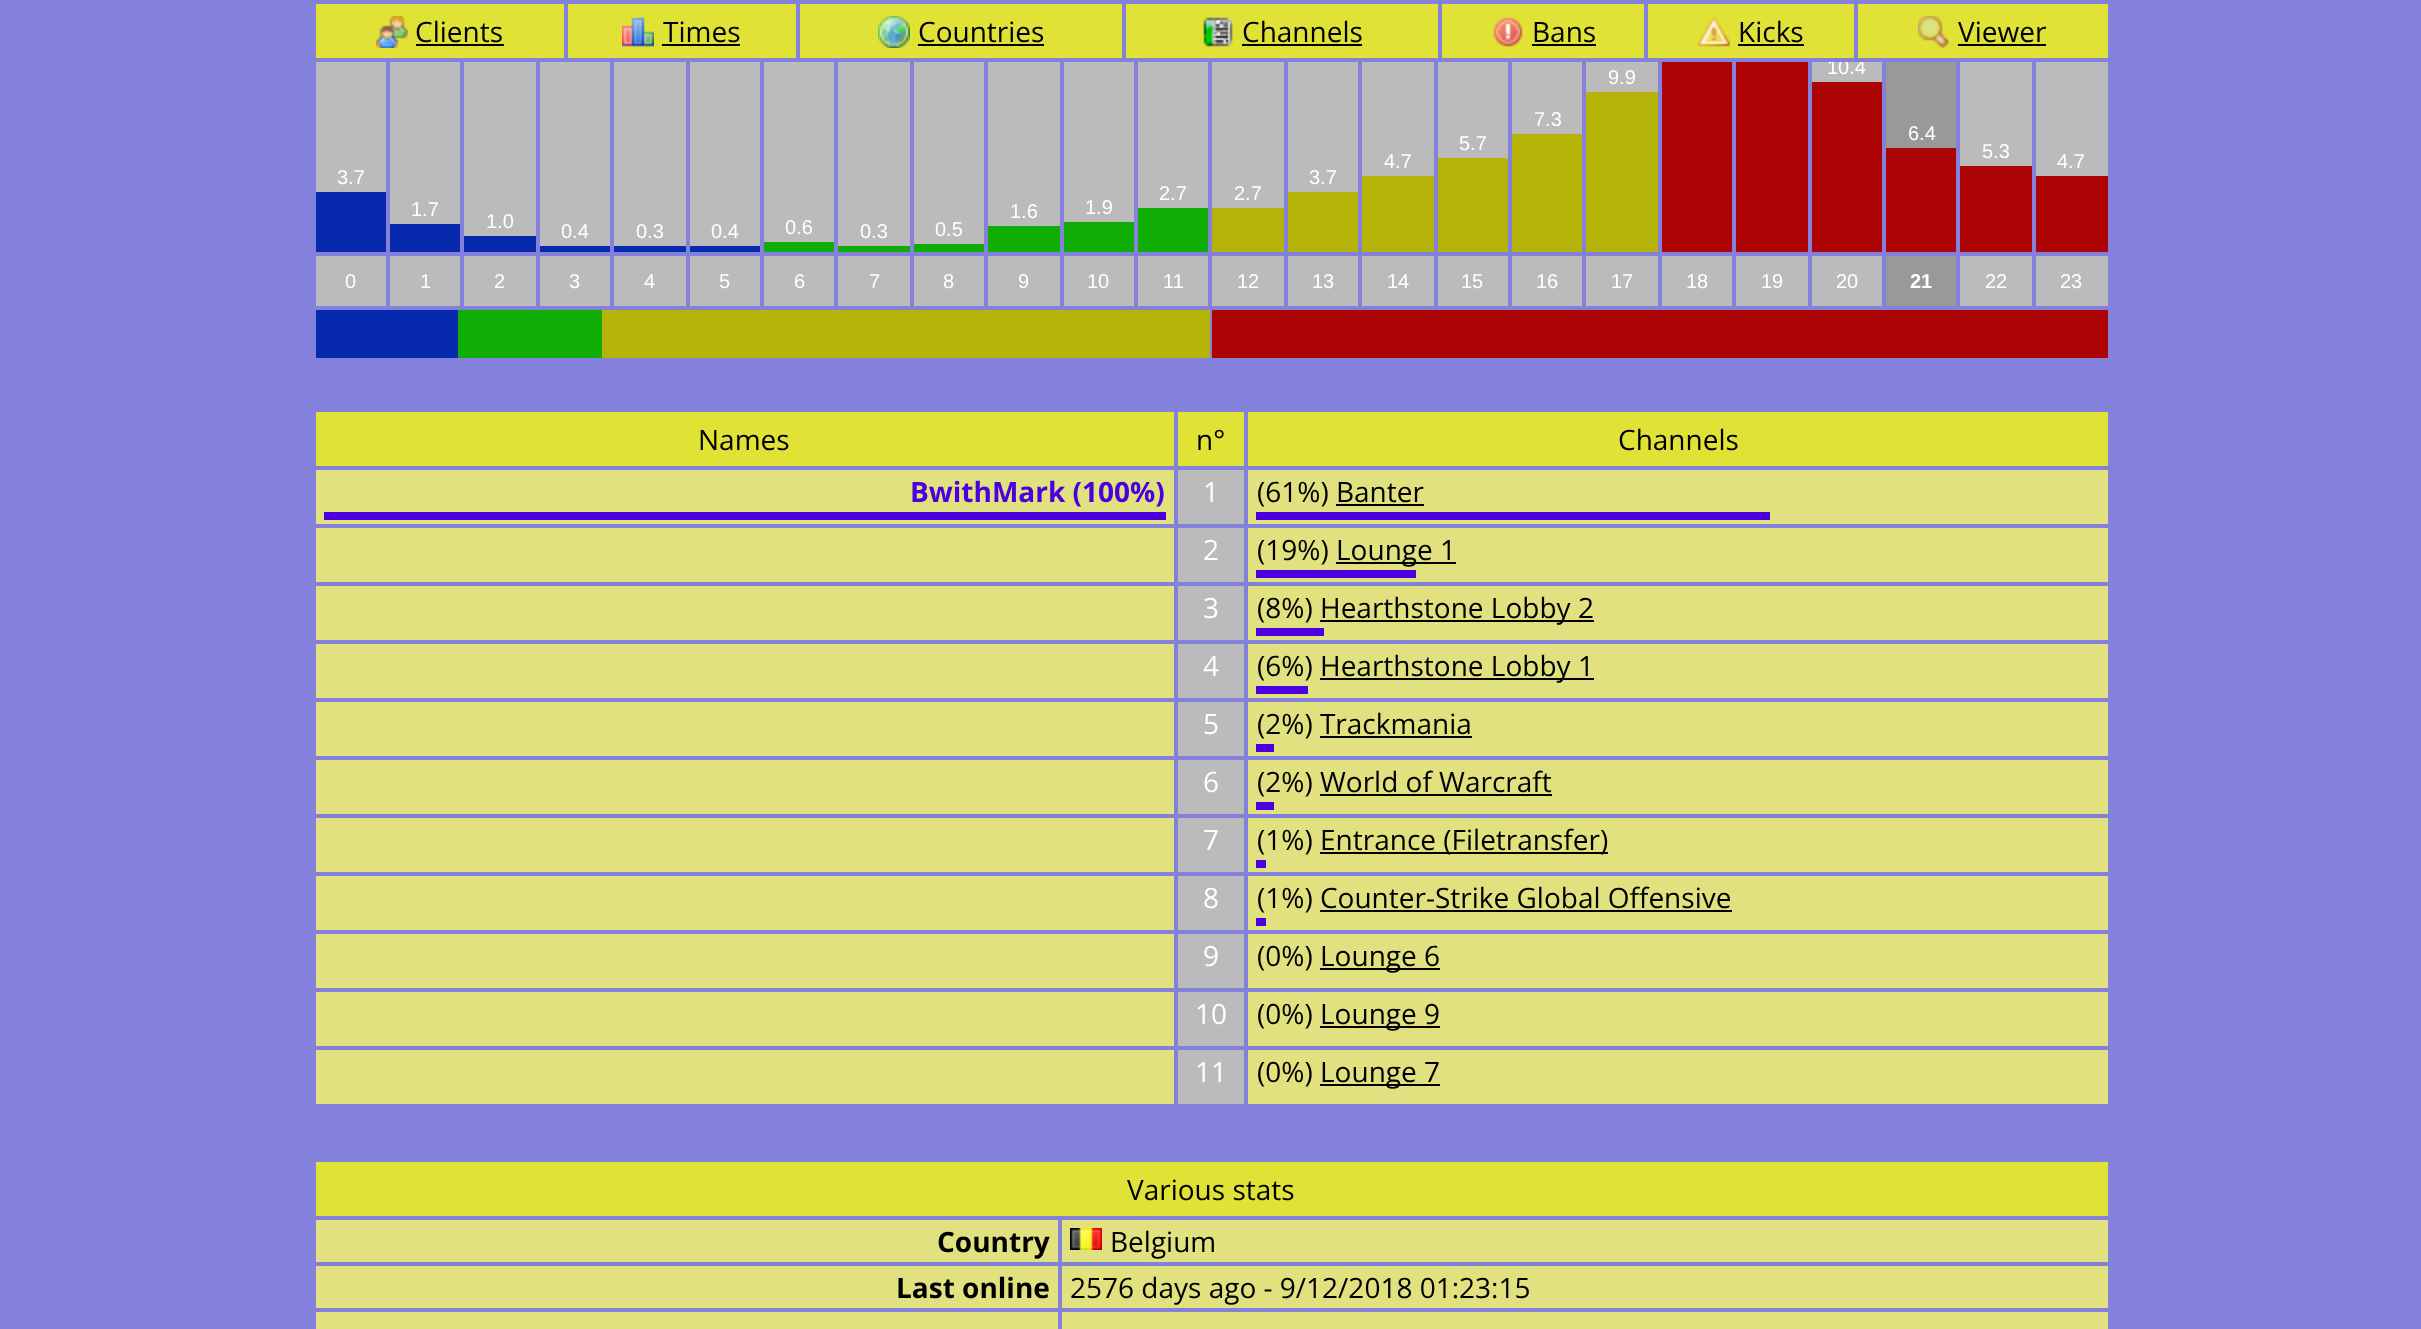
<!DOCTYPE html>
<meta charset="utf-8">
<style>body { margin: 0 } canvas { display: block }</style>
<canvas id="canvas" width="2421" height="1329"></canvas>
<img id="img1" src="img_01.png" hidden>
<img id="img2" src="img_02.png" hidden>
<img id="img3" src="img_03.png" hidden>
<img id="img4" src="img_04.png" hidden>
<img id="img5" src="img_05.png" hidden>
<img id="img6" src="img_06.png" hidden>
<img id="img7" src="img_07.png" hidden>
<img id="img8" src="img_08.png" hidden>
<script>
window.onload = function () {
	const canvas = document.getElementById("canvas");
	const ctx = canvas.getContext("2d");
	ctx.miterLimit = 4;
	ctx.fontKerning = "normal";
	function txt(s, x, y) {
		ctx.fillText(s, x, y);
	}
	function fill(x, y, w, h) {
		ctx.fillRect(x, y, w, h);
	}
	function img(id, x, y, w, h) {
		ctx.drawImage(document.getElementById(id), x, y, w, h);
	}

	ctx.fillStyle = "#8381DB";
	fill(0, 0, 2421, 1329);
	ctx.fillStyle = "#E1E236";
	fill(316, 4, 248, 54);
	img("img1", 376, 16, 32, 32);
	ctx.fillStyle = "#000000";
	fill(416, 44, 88, 2);
	ctx.fillStyle = "#E1E236";
	fill(568, 4, 228, 54);
	img("img2", 622, 17, 32, 30);
	ctx.fillStyle = "#000000";
	fill(662, 44, 78, 2);
	ctx.fillStyle = "#E1E236";
	fill(800, 4, 322, 54);
	img("img3", 878, 16, 32, 32);
	ctx.fillStyle = "#000000";
	fill(918, 44, 126, 2);
	ctx.fillStyle = "#E1E236";
	fill(1126, 4, 312, 54);
	img("img4", 1203, 17, 30, 30);
	ctx.fillStyle = "#000000";
	fill(1242, 44, 120, 2);
	ctx.fillStyle = "#E1E236";
	fill(1442, 4, 202, 54);
	img("img5", 1493, 17, 30, 30);
	ctx.fillStyle = "#000000";
	fill(1532, 44, 64, 2);
	ctx.fillStyle = "#E1E236";
	fill(1648, 4, 206, 54);
	img("img6", 1698, 17, 32, 30);
	ctx.fillStyle = "#000000";
	fill(1738, 44, 66, 2);
	ctx.fillStyle = "#E1E236";
	fill(1858, 4, 250, 54);
	img("img7", 1918, 16, 32, 32);
	ctx.fillStyle = "#000000";
	fill(1958, 44, 88, 2);
	ctx.fillStyle = "#BBBBBB";
	fill(1586, 62, 72, 30);
	ctx.fillStyle = "#B6B309";
	fill(1586, 92, 72, 160);
	ctx.fillStyle = "#AD0506";
	fill(1662, 62, 70, 190);
	fill(1736, 62, 72, 190);
	ctx.fillStyle = "#BBBBBB";
	fill(1812, 62, 70, 20);
	ctx.fillStyle = "#AD0506";
	fill(1812, 82, 70, 170);
	ctx.fillStyle = "#BBBBBB";
	fill(1512, 62, 70, 72);
	ctx.fillStyle = "#B6B309";
	fill(1512, 134, 70, 118);
	ctx.fillStyle = "#999999";
	fill(1886, 62, 70, 86);
	ctx.fillStyle = "#AD0506";
	fill(1886, 148, 70, 104);
	ctx.fillStyle = "#BBBBBB";
	fill(1438, 62, 70, 96);
	ctx.fillStyle = "#B6B309";
	fill(1438, 158, 70, 94);
	ctx.fillStyle = "#BBBBBB";
	fill(1960, 62, 72, 104);
	ctx.fillStyle = "#AD0506";
	fill(1960, 166, 72, 86);
	ctx.fillStyle = "#BBBBBB";
	fill(1362, 62, 72, 114);
	ctx.fillStyle = "#B6B309";
	fill(1362, 176, 72, 76);
	ctx.fillStyle = "#BBBBBB";
	fill(2036, 62, 72, 114);
	ctx.fillStyle = "#AD0506";
	fill(2036, 176, 72, 76);
	ctx.fillStyle = "#BBBBBB";
	fill(316, 62, 70, 130);
	ctx.fillStyle = "#0629AD";
	fill(316, 192, 70, 60);
	ctx.fillStyle = "#BBBBBB";
	fill(1288, 62, 70, 130);
	ctx.fillStyle = "#B6B309";
	fill(1288, 192, 70, 60);
	ctx.fillStyle = "#BBBBBB";
	fill(1138, 62, 70, 146);
	ctx.fillStyle = "#10AE05";
	fill(1138, 208, 70, 44);
	ctx.fillStyle = "#BBBBBB";
	fill(1212, 62, 72, 146);
	ctx.fillStyle = "#B6B309";
	fill(1212, 208, 72, 44);
	ctx.fillStyle = "#BBBBBB";
	fill(390, 62, 70, 162);
	ctx.fillStyle = "#0629AD";
	fill(390, 224, 70, 28);
	ctx.fillStyle = "#BBBBBB";
	fill(988, 62, 72, 164);
	ctx.fillStyle = "#10AE05";
	fill(988, 226, 72, 26);
	ctx.fillStyle = "#BBBBBB";
	fill(1064, 62, 70, 160);
	ctx.fillStyle = "#10AE05";
	fill(1064, 222, 70, 30);
	ctx.fillStyle = "#BBBBBB";
	fill(464, 62, 72, 174);
	ctx.fillStyle = "#0629AD";
	fill(464, 236, 72, 16);
	ctx.fillStyle = "#BBBBBB";
	fill(540, 62, 70, 184);
	ctx.fillStyle = "#0629AD";
	fill(540, 246, 70, 6);
	ctx.fillStyle = "#BBBBBB";
	fill(614, 62, 72, 184);
	ctx.fillStyle = "#0629AD";
	fill(614, 246, 72, 6);
	ctx.fillStyle = "#BBBBBB";
	fill(690, 62, 70, 184);
	ctx.fillStyle = "#0629AD";
	fill(690, 246, 70, 6);
	ctx.fillStyle = "#BBBBBB";
	fill(764, 62, 70, 180);
	ctx.fillStyle = "#10AE05";
	fill(764, 242, 70, 10);
	ctx.fillStyle = "#BBBBBB";
	fill(838, 62, 72, 184);
	ctx.fillStyle = "#10AE05";
	fill(838, 246, 72, 6);
	ctx.fillStyle = "#BBBBBB";
	fill(914, 62, 70, 182);
	ctx.fillStyle = "#10AE05";
	fill(914, 244, 70, 8);
	ctx.fillStyle = "#BBBBBB";
	fill(316, 256, 70, 50);
	fill(390, 256, 70, 50);
	fill(464, 256, 72, 50);
	fill(540, 256, 70, 50);
	fill(614, 256, 72, 50);
	fill(690, 256, 70, 50);
	fill(764, 256, 70, 50);
	fill(838, 256, 72, 50);
	fill(914, 256, 70, 50);
	fill(988, 256, 72, 50);
	fill(1064, 256, 70, 50);
	fill(1138, 256, 70, 50);
	fill(1212, 256, 72, 50);
	fill(1288, 256, 70, 50);
	fill(1362, 256, 72, 50);
	fill(1438, 256, 70, 50);
	fill(1512, 256, 70, 50);
	fill(1586, 256, 72, 50);
	fill(1662, 256, 70, 50);
	fill(1736, 256, 72, 50);
	fill(1812, 256, 70, 50);
	ctx.fillStyle = "#999999";
	fill(1886, 256, 70, 50);
	ctx.fillStyle = "#BBBBBB";
	fill(1960, 256, 72, 50);
	fill(2036, 256, 72, 50);
	ctx.fillStyle = "#0629AD";
	fill(316, 310, 142, 48);
	ctx.fillStyle = "#10AE05";
	fill(458, 310, 144, 48);
	ctx.fillStyle = "#B6B309";
	fill(602, 310, 608, 48);
	ctx.fillStyle = "#AD0506";
	fill(1212, 310, 896, 48);
	ctx.fillStyle = "#E1E236";
	fill(316, 412, 858, 54);
	fill(1178, 412, 66, 54);
	fill(1248, 412, 860, 54);
	ctx.fillStyle = "#E1E27F";
	fill(316, 470, 858, 54);
	ctx.fillStyle = "#4C00E0";
	fill(324, 512, 842, 8);
	ctx.fillStyle = "#BBBBBB";
	fill(1178, 470, 66, 54);
	ctx.fillStyle = "#E1E27F";
	fill(1248, 470, 860, 54);
	ctx.fillStyle = "#000000";
	fill(1336, 504, 88, 2);
	ctx.fillStyle = "#4C00E0";
	fill(1256, 512, 514, 8);
	ctx.fillStyle = "#E1E27F";
	fill(316, 528, 858, 54);
	ctx.fillStyle = "#BBBBBB";
	fill(1178, 528, 66, 54);
	ctx.fillStyle = "#E1E27F";
	fill(1248, 528, 860, 54);
	ctx.fillStyle = "#000000";
	fill(1336, 562, 120, 2);
	ctx.fillStyle = "#4C00E0";
	fill(1256, 570, 160, 8);
	ctx.fillStyle = "#E1E27F";
	fill(316, 586, 858, 54);
	ctx.fillStyle = "#BBBBBB";
	fill(1178, 586, 66, 54);
	ctx.fillStyle = "#E1E27F";
	fill(1248, 586, 860, 54);
	ctx.fillStyle = "#000000";
	fill(1320, 620, 274, 2);
	ctx.fillStyle = "#4C00E0";
	fill(1256, 628, 68, 8);
	ctx.fillStyle = "#E1E27F";
	fill(316, 644, 858, 54);
	ctx.fillStyle = "#BBBBBB";
	fill(1178, 644, 66, 54);
	ctx.fillStyle = "#E1E27F";
	fill(1248, 644, 860, 54);
	ctx.fillStyle = "#000000";
	fill(1320, 678, 274, 2);
	ctx.fillStyle = "#4C00E0";
	fill(1256, 686, 52, 8);
	ctx.fillStyle = "#E1E27F";
	fill(316, 702, 858, 54);
	ctx.fillStyle = "#BBBBBB";
	fill(1178, 702, 66, 54);
	ctx.fillStyle = "#E1E27F";
	fill(1248, 702, 860, 54);
	ctx.fillStyle = "#000000";
	fill(1320, 736, 152, 2);
	ctx.fillStyle = "#4C00E0";
	fill(1256, 744, 18, 8);
	ctx.fillStyle = "#E1E27F";
	fill(316, 760, 858, 54);
	ctx.fillStyle = "#BBBBBB";
	fill(1178, 760, 66, 54);
	ctx.fillStyle = "#E1E27F";
	fill(1248, 760, 860, 54);
	ctx.fillStyle = "#000000";
	fill(1320, 794, 232, 2);
	ctx.fillStyle = "#4C00E0";
	fill(1256, 802, 18, 8);
	ctx.fillStyle = "#E1E27F";
	fill(316, 818, 858, 54);
	ctx.fillStyle = "#BBBBBB";
	fill(1178, 818, 66, 54);
	ctx.fillStyle = "#E1E27F";
	fill(1248, 818, 860, 54);
	ctx.fillStyle = "#000000";
	fill(1320, 852, 288, 2);
	ctx.fillStyle = "#4C00E0";
	fill(1256, 860, 10, 8);
	ctx.fillStyle = "#E1E27F";
	fill(316, 876, 858, 54);
	ctx.fillStyle = "#BBBBBB";
	fill(1178, 876, 66, 54);
	ctx.fillStyle = "#E1E27F";
	fill(1248, 876, 860, 54);
	ctx.fillStyle = "#000000";
	fill(1320, 910, 412, 2);
	ctx.fillStyle = "#4C00E0";
	fill(1256, 918, 10, 8);
	ctx.fillStyle = "#E1E27F";
	fill(316, 934, 858, 54);
	ctx.fillStyle = "#BBBBBB";
	fill(1178, 934, 66, 54);
	ctx.fillStyle = "#E1E27F";
	fill(1248, 934, 860, 54);
	ctx.fillStyle = "#000000";
	fill(1320, 968, 120, 2);
	ctx.fillStyle = "#E1E27F";
	fill(316, 992, 858, 54);
	ctx.fillStyle = "#BBBBBB";
	fill(1178, 992, 66, 54);
	ctx.fillStyle = "#E1E27F";
	fill(1248, 992, 860, 54);
	ctx.fillStyle = "#000000";
	fill(1320, 1026, 120, 2);
	ctx.fillStyle = "#E1E27F";
	fill(316, 1050, 858, 54);
	ctx.fillStyle = "#BBBBBB";
	fill(1178, 1050, 66, 54);
	ctx.fillStyle = "#E1E27F";
	fill(1248, 1050, 860, 54);
	ctx.fillStyle = "#000000";
	fill(1320, 1084, 120, 2);
	ctx.fillStyle = "#E1E236";
	fill(316, 1162, 1792, 54);
	ctx.fillStyle = "#E1E27F";
	fill(316, 1220, 742, 42);
	fill(1062, 1220, 1046, 42);
	img("img8", 1070, 1228, 32, 22);
	fill(316, 1266, 742, 42);
	fill(1062, 1266, 1046, 42);
	fill(316, 1312, 742, 17);
	fill(1062, 1312, 1046, 17);
	ctx.font = "28px Open Sans";
	ctx.fillStyle = "#000000";
	txt("Clients", 415, 42);
	txt("Times", 663, 42);
	txt("Countries", 918, 42);
	txt("Channels", 1242, 42);
	txt("Bans", 1532, 42);
	txt("Kicks", 1738, 42);
	txt("Viewer", 1958, 42);
	ctx.font = "20px Liberation Sans";
	ctx.fillStyle = "#FFFFFF";
	txt("9.9", 1608, 84);
	txt("10.4", 1827, 74);
	ctx.fillStyle = "#8381DB";
	fill(1830, 60, 34, 2);
	ctx.fillStyle = "#FFFFFF";
	txt("7.3", 1534, 126);
	txt("6.4", 1908, 140);
	txt("5.7", 1459, 150);
	txt("5.3", 1982, 158);
	txt("4.7", 1384, 168);
	txt("4.7", 2057, 168);
	txt("3.7", 337, 184);
	txt("3.7", 1309, 184);
	txt("2.7", 1159, 200);
	txt("2.7", 1234, 200);
	txt("1.7", 411, 216);
	txt("1.6", 1010, 218);
	txt("1.9", 1085, 214);
	txt("1.0", 486, 228);
	txt("0.4", 561, 238);
	txt("0.3", 636, 238);
	txt("0.4", 711, 238);
	txt("0.6", 785, 234);
	txt("0.3", 860, 238);
	txt("0.5", 935, 236);
	txt("0", 345, 288);
	txt("1", 420, 288);
	txt("2", 494, 288);
	txt("3", 569, 288);
	txt("4", 644, 288);
	txt("5", 719, 288);
	txt("6", 794, 288);
	txt("7", 869, 288);
	txt("8", 943, 288);
	txt("9", 1018, 288);
	txt("10", 1087, 288);
	txt("11", 1163, 288);
	txt("12", 1237, 288);
	txt("13", 1312, 288);
	txt("14", 1387, 288);
	txt("15", 1461, 288);
	txt("16", 1536, 288);
	txt("17", 1611, 288);
	txt("18", 1686, 288);
	txt("19", 1761, 288);
	txt("20", 1836, 288);
	ctx.font = "bold 20px Liberation Sans";
	txt("21", 1910, 288);
	ctx.font = "20px Liberation Sans";
	txt("22", 1985, 288);
	txt("23", 2060, 288);
	ctx.font = "28px Open Sans";
	ctx.fillStyle = "#000000";
	txt("Names", 698, 450);
	txt("n°", 1196, 450);
	txt("Channels", 1618, 450);
	ctx.font = "bold 28px Open Sans";
	ctx.fillStyle = "#4C00E0";
	txt("BwithMark (100%)", 910, 502);
	ctx.font = "28px Open Sans";
	ctx.fillStyle = "#FFFFFF";
	txt("1", 1203, 502);
	ctx.fillStyle = "#000000";
	txt("(61%) Banter", 1257, 502);
	ctx.fillStyle = "#FFFFFF";
	txt("2", 1203, 560);
	ctx.fillStyle = "#000000";
	txt("(19%)", 1257, 560);
	txt("Lounge 1", 1336, 560);
	ctx.fillStyle = "#FFFFFF";
	txt("3", 1203, 618);
	ctx.fillStyle = "#000000";
	txt("(8%)", 1257, 618);
	txt("Hearthstone Lobby 2", 1320, 618);
	ctx.fillStyle = "#FFFFFF";
	txt("4", 1203, 676);
	ctx.fillStyle = "#000000";
	txt("(6%)", 1257, 676);
	txt("Hearthstone Lobby 1", 1320, 676);
	ctx.fillStyle = "#FFFFFF";
	txt("5", 1203, 734);
	ctx.fillStyle = "#000000";
	txt("(2%) Trackmania", 1257, 734);
	ctx.fillStyle = "#FFFFFF";
	txt("6", 1203, 792);
	ctx.fillStyle = "#000000";
	txt("(2%) World of Warcraft", 1257, 792);
	ctx.fillStyle = "#FFFFFF";
	txt("7", 1203, 850);
	ctx.fillStyle = "#000000";
	txt("(1%)", 1257, 850);
	txt("Entrance (Filetransfer)", 1320, 850);
	ctx.fillStyle = "#FFFFFF";
	txt("8", 1203, 908);
	ctx.fillStyle = "#000000";
	txt("(1%) Counter-Strike Global Offensive", 1257, 908);
	ctx.fillStyle = "#FFFFFF";
	txt("9", 1203, 966);
	ctx.fillStyle = "#000000";
	txt("(0%)", 1257, 966);
	txt("Lounge 6", 1320, 966);
	ctx.fillStyle = "#FFFFFF";
	txt("10", 1195, 1024);
	ctx.fillStyle = "#000000";
	txt("(0%)", 1257, 1024);
	txt("Lounge 9", 1320, 1024);
	ctx.fillStyle = "#FFFFFF";
	txt("11", 1195, 1082);
	ctx.fillStyle = "#000000";
	txt("(0%)", 1257, 1082);
	txt("Lounge 7", 1320, 1082);
	txt("Various stats", 1127, 1200);
	ctx.font = "bold 28px Open Sans";
	txt("Country", 937, 1252);
	ctx.font = "28px Open Sans";
	txt("Belgium", 1110, 1252);
	ctx.font = "bold 28px Open Sans";
	txt("Last online", 896, 1298);
	ctx.font = "28px Open Sans";
	txt("2576 days ago - 9/12/2018 01:23:15", 1070, 1298);
};
</script>
